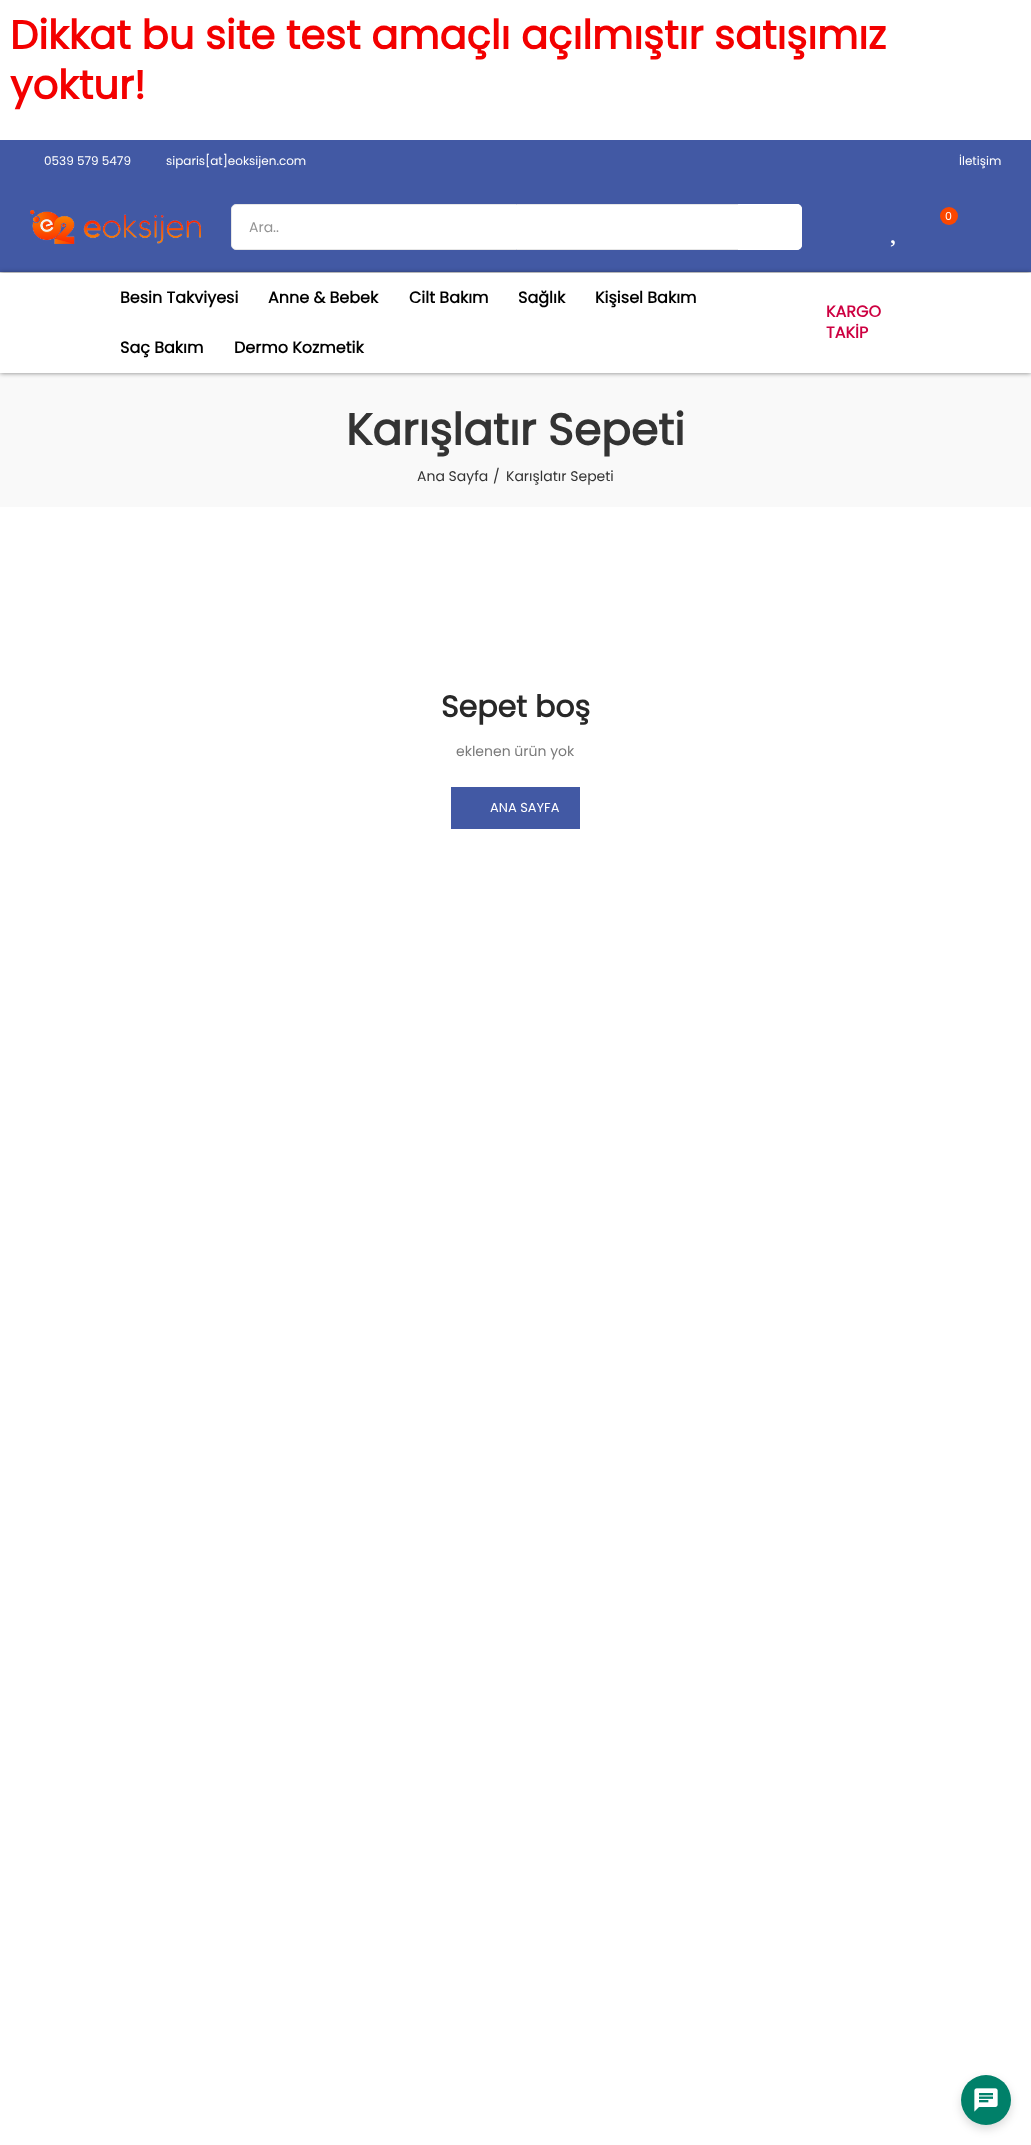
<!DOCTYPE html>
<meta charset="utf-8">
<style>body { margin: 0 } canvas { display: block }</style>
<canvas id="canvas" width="1031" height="2145"></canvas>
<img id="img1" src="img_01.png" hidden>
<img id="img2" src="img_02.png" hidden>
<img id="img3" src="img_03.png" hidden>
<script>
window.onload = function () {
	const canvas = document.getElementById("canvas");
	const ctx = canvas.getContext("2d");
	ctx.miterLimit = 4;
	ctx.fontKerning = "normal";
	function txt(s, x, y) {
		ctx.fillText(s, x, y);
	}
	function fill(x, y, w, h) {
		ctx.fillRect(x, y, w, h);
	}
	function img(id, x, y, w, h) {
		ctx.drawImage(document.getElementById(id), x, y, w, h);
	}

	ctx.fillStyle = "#FFFFFF";
	fill(0, 0, 1031, 2145);
	ctx.fillStyle = "#4259A4";
	fill(0, 140, 1031, 132);
	ctx.fillStyle = "#E8E8E8";
	fill(0, 272, 1031, 1);
	img("img1", 30, 210, 171, 34);
	ctx.fillStyle = "#FB4700";
	ctx.beginPath();
	ctx.arc(949, 216, 9, 0, Math.PI * 2);
	ctx.fill();
	img("img2", 890, 240, 5, 7);
	ctx.fillStyle = "#FFFFFF";
	ctx.beginPath();
	ctx.roundRect(231.5, 204.5, 570, 45, 4.5);
	ctx.fill();
	ctx.strokeStyle = "#E6E6E6";
	ctx.stroke();
	ctx.beginPath();
	ctx.roundRect(738, 204, 64, 46, [0, 5, 5, 0]);
	ctx.fill();
	ctx.fillStyle = "#F9F9F9";
	fill(0, 373, 1031, 134);
	ctx.fillStyle = "rgba(0, 0, 0, 0.5)";
	ctx.filter = "blur(2.5px)";
	ctx.beginPath();
	ctx.rect(0, 273, 1031, 100);
	ctx.fill();
	ctx.filter = "none";
	ctx.fillStyle = "#FFFFFF";
	fill(0, 273, 1031, 100);
	ctx.fillStyle = "#4259A4";
	fill(451, 787, 129, 42);
	ctx.fillStyle = "rgba(0, 0, 0, 0.15)";
	ctx.filter = "blur(5px)";
	ctx.beginPath();
	ctx.roundRect(961, 2079, 50, 50, 25);
	ctx.fill();
	ctx.filter = "none";
	ctx.fillStyle = "#008069";
	ctx.beginPath();
	ctx.arc(986, 2100, 25, 0, Math.PI * 2);
	ctx.fill();
	img("img3", 974, 2088, 24, 24);
	ctx.font = "bold 40px Poppins";
	ctx.fillStyle = "#F30000";
	txt("Dikkat bu site test amaçlı açılmıştır satışımız", 10, 49);
	txt("yoktur!", 10, 99);
	ctx.font = "12px Poppins";
	ctx.fillStyle = "#FFFFFF";
	txt("0539 579 5479", 44, 165);
	txt("siparis[at]eoksijen.com", 166, 165);
	txt("İletişim", 959, 165);
	ctx.font = "11px Poppins";
	txt("0", 945, 220);
	ctx.font = "14px Poppins";
	ctx.fillStyle = "#949494";
	txt("Ara..", 249, 232);
	ctx.font = "bold 16px Poppins";
	ctx.fillStyle = "#000000";
	txt("Besin Takviyesi", 120, 303);
	txt("Anne & Bebek", 268, 303);
	txt("Cilt Bakım", 409, 303);
	txt("Sağlık", 518, 303);
	txt("Kişisel Bakım", 595, 303);
	txt("Saç Bakım", 120, 353);
	txt("Dermo Kozmetik", 234, 353);
	ctx.fillStyle = "#CD0041";
	txt("KARGO", 826, 317);
	txt("TAKİP", 826, 338);
	ctx.font = "bold 44px Poppins";
	ctx.fillStyle = "#333333";
	txt("Karışlatır Sepeti", 346, 445);
	ctx.font = "14px Poppins";
	txt("Ana Sayfa", 417, 481);
	txt("/", 493, 481);
	txt("Karışlatır Sepeti", 506, 481);
	ctx.font = "bold 30px Poppins";
	ctx.fillStyle = "#282828";
	txt("Sepet boş", 441, 717);
	ctx.font = "14px Poppins";
	ctx.fillStyle = "#7A7A7A";
	txt("eklenen ürün yok", 456, 756);
	ctx.font = "13px Poppins";
	ctx.fillStyle = "#FFFFFF";
	txt("ANA SAYFA", 490, 812);
};
</script>
